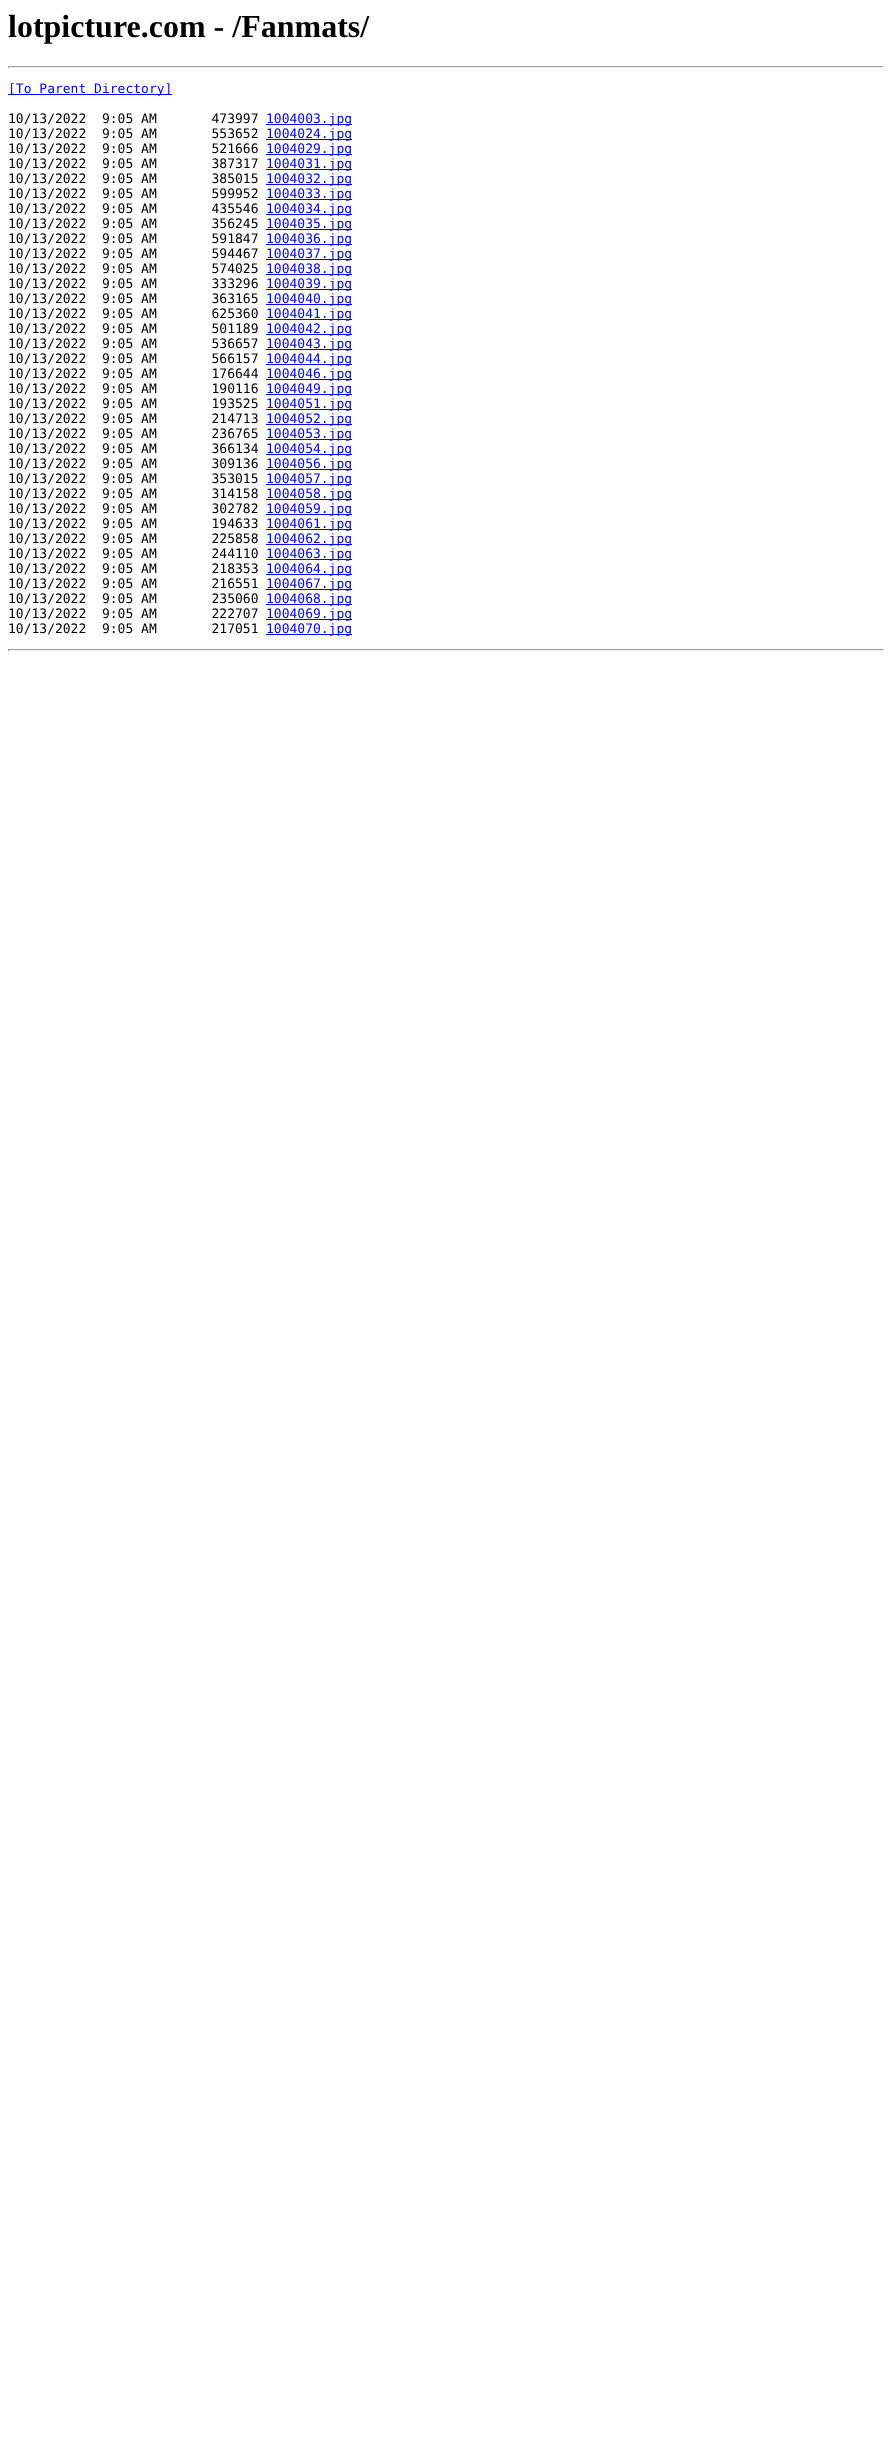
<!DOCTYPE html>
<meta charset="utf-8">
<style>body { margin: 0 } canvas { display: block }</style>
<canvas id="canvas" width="892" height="2438"></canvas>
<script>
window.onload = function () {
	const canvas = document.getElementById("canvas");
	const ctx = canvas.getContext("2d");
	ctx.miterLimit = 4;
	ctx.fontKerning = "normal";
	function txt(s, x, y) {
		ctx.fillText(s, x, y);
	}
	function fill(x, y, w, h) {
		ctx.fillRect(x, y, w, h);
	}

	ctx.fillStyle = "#FFFFFF";
	fill(0, 0, 892, 2438);
	ctx.fillStyle = "#9F9F9F";
	fill(8, 66, 876, 1);
	ctx.fillStyle = "#EEEEEE";
	fill(883, 66, 1, 2);
	fill(8, 67, 876, 1);
	ctx.fillStyle = "#9F9F9F";
	fill(8, 66, 1, 2);
	ctx.fillStyle = "#0000EE";
	fill(8, 94, 164, 1);
	fill(266, 124, 86, 1);
	fill(266, 139, 86, 1);
	fill(266, 154, 86, 1);
	fill(266, 169, 86, 1);
	fill(266, 184, 86, 1);
	fill(266, 199, 86, 1);
	fill(266, 214, 86, 1);
	fill(266, 229, 86, 1);
	fill(266, 244, 86, 1);
	fill(266, 259, 86, 1);
	fill(266, 274, 86, 1);
	fill(266, 289, 86, 1);
	fill(266, 304, 86, 1);
	fill(266, 319, 86, 1);
	fill(266, 334, 86, 1);
	fill(266, 349, 86, 1);
	fill(266, 364, 86, 1);
	fill(266, 379, 86, 1);
	fill(266, 394, 86, 1);
	fill(266, 409, 86, 1);
	fill(266, 424, 86, 1);
	fill(266, 439, 86, 1);
	fill(266, 454, 86, 1);
	fill(266, 469, 86, 1);
	fill(266, 484, 86, 1);
	fill(266, 499, 86, 1);
	fill(266, 514, 86, 1);
	fill(266, 529, 86, 1);
	fill(266, 544, 86, 1);
	fill(266, 559, 86, 1);
	fill(266, 574, 86, 1);
	fill(266, 589, 86, 1);
	fill(266, 604, 86, 1);
	fill(266, 619, 86, 1);
	fill(266, 634, 86, 1);
	ctx.fillStyle = "#9F9F9F";
	fill(8, 649, 876, 1);
	ctx.fillStyle = "#EEEEEE";
	fill(883, 649, 1, 2);
	fill(8, 650, 876, 1);
	ctx.fillStyle = "#9F9F9F";
	fill(8, 649, 1, 2);
	ctx.font = "bold 32px Liberation Serif";
	ctx.fillStyle = "#000000";
	txt("lotpicture.com - /Fanmats/", 8, 37);
	ctx.font = "13px DejaVu Sans Mono";
	ctx.fillStyle = "#0000EE";
	txt("[To Parent Directory]", 8, 93);
	ctx.fillStyle = "#000000";
	txt("10/13/2022  9:05 AM       473997", 8, 123);
	ctx.fillStyle = "#0000EE";
	txt("1004003.jpg", 266, 123);
	ctx.fillStyle = "#000000";
	txt("10/13/2022  9:05 AM       553652", 8, 138);
	ctx.fillStyle = "#0000EE";
	txt("1004024.jpg", 266, 138);
	ctx.fillStyle = "#000000";
	txt("10/13/2022  9:05 AM       521666", 8, 153);
	ctx.fillStyle = "#0000EE";
	txt("1004029.jpg", 266, 153);
	ctx.fillStyle = "#000000";
	txt("10/13/2022  9:05 AM       387317", 8, 168);
	ctx.fillStyle = "#0000EE";
	txt("1004031.jpg", 266, 168);
	ctx.fillStyle = "#000000";
	txt("10/13/2022  9:05 AM       385015", 8, 183);
	ctx.fillStyle = "#0000EE";
	txt("1004032.jpg", 266, 183);
	ctx.fillStyle = "#000000";
	txt("10/13/2022  9:05 AM       599952", 8, 198);
	ctx.fillStyle = "#0000EE";
	txt("1004033.jpg", 266, 198);
	ctx.fillStyle = "#000000";
	txt("10/13/2022  9:05 AM       435546", 8, 213);
	ctx.fillStyle = "#0000EE";
	txt("1004034.jpg", 266, 213);
	ctx.fillStyle = "#000000";
	txt("10/13/2022  9:05 AM       356245", 8, 228);
	ctx.fillStyle = "#0000EE";
	txt("1004035.jpg", 266, 228);
	ctx.fillStyle = "#000000";
	txt("10/13/2022  9:05 AM       591847", 8, 243);
	ctx.fillStyle = "#0000EE";
	txt("1004036.jpg", 266, 243);
	ctx.fillStyle = "#000000";
	txt("10/13/2022  9:05 AM       594467", 8, 258);
	ctx.fillStyle = "#0000EE";
	txt("1004037.jpg", 266, 258);
	ctx.fillStyle = "#000000";
	txt("10/13/2022  9:05 AM       574025", 8, 273);
	ctx.fillStyle = "#0000EE";
	txt("1004038.jpg", 266, 273);
	ctx.fillStyle = "#000000";
	txt("10/13/2022  9:05 AM       333296", 8, 288);
	ctx.fillStyle = "#0000EE";
	txt("1004039.jpg", 266, 288);
	ctx.fillStyle = "#000000";
	txt("10/13/2022  9:05 AM       363165", 8, 303);
	ctx.fillStyle = "#0000EE";
	txt("1004040.jpg", 266, 303);
	ctx.fillStyle = "#000000";
	txt("10/13/2022  9:05 AM       625360", 8, 318);
	ctx.fillStyle = "#0000EE";
	txt("1004041.jpg", 266, 318);
	ctx.fillStyle = "#000000";
	txt("10/13/2022  9:05 AM       501189", 8, 333);
	ctx.fillStyle = "#0000EE";
	txt("1004042.jpg", 266, 333);
	ctx.fillStyle = "#000000";
	txt("10/13/2022  9:05 AM       536657", 8, 348);
	ctx.fillStyle = "#0000EE";
	txt("1004043.jpg", 266, 348);
	ctx.fillStyle = "#000000";
	txt("10/13/2022  9:05 AM       566157", 8, 363);
	ctx.fillStyle = "#0000EE";
	txt("1004044.jpg", 266, 363);
	ctx.fillStyle = "#000000";
	txt("10/13/2022  9:05 AM       176644", 8, 378);
	ctx.fillStyle = "#0000EE";
	txt("1004046.jpg", 266, 378);
	ctx.fillStyle = "#000000";
	txt("10/13/2022  9:05 AM       190116", 8, 393);
	ctx.fillStyle = "#0000EE";
	txt("1004049.jpg", 266, 393);
	ctx.fillStyle = "#000000";
	txt("10/13/2022  9:05 AM       193525", 8, 408);
	ctx.fillStyle = "#0000EE";
	txt("1004051.jpg", 266, 408);
	ctx.fillStyle = "#000000";
	txt("10/13/2022  9:05 AM       214713", 8, 423);
	ctx.fillStyle = "#0000EE";
	txt("1004052.jpg", 266, 423);
	ctx.fillStyle = "#000000";
	txt("10/13/2022  9:05 AM       236765", 8, 438);
	ctx.fillStyle = "#0000EE";
	txt("1004053.jpg", 266, 438);
	ctx.fillStyle = "#000000";
	txt("10/13/2022  9:05 AM       366134", 8, 453);
	ctx.fillStyle = "#0000EE";
	txt("1004054.jpg", 266, 453);
	ctx.fillStyle = "#000000";
	txt("10/13/2022  9:05 AM       309136", 8, 468);
	ctx.fillStyle = "#0000EE";
	txt("1004056.jpg", 266, 468);
	ctx.fillStyle = "#000000";
	txt("10/13/2022  9:05 AM       353015", 8, 483);
	ctx.fillStyle = "#0000EE";
	txt("1004057.jpg", 266, 483);
	ctx.fillStyle = "#000000";
	txt("10/13/2022  9:05 AM       314158", 8, 498);
	ctx.fillStyle = "#0000EE";
	txt("1004058.jpg", 266, 498);
	ctx.fillStyle = "#000000";
	txt("10/13/2022  9:05 AM       302782", 8, 513);
	ctx.fillStyle = "#0000EE";
	txt("1004059.jpg", 266, 513);
	ctx.fillStyle = "#000000";
	txt("10/13/2022  9:05 AM       194633", 8, 528);
	ctx.fillStyle = "#0000EE";
	txt("1004061.jpg", 266, 528);
	ctx.fillStyle = "#000000";
	txt("10/13/2022  9:05 AM       225858", 8, 543);
	ctx.fillStyle = "#0000EE";
	txt("1004062.jpg", 266, 543);
	ctx.fillStyle = "#000000";
	txt("10/13/2022  9:05 AM       244110", 8, 558);
	ctx.fillStyle = "#0000EE";
	txt("1004063.jpg", 266, 558);
	ctx.fillStyle = "#000000";
	txt("10/13/2022  9:05 AM       218353", 8, 573);
	ctx.fillStyle = "#0000EE";
	txt("1004064.jpg", 266, 573);
	ctx.fillStyle = "#000000";
	txt("10/13/2022  9:05 AM       216551", 8, 588);
	ctx.fillStyle = "#0000EE";
	txt("1004067.jpg", 266, 588);
	ctx.fillStyle = "#000000";
	txt("10/13/2022  9:05 AM       235060", 8, 603);
	ctx.fillStyle = "#0000EE";
	txt("1004068.jpg", 266, 603);
	ctx.fillStyle = "#000000";
	txt("10/13/2022  9:05 AM       222707", 8, 618);
	ctx.fillStyle = "#0000EE";
	txt("1004069.jpg", 266, 618);
	ctx.fillStyle = "#000000";
	txt("10/13/2022  9:05 AM       217051", 8, 633);
	ctx.fillStyle = "#0000EE";
	txt("1004070.jpg", 266, 633);
};
</script>
